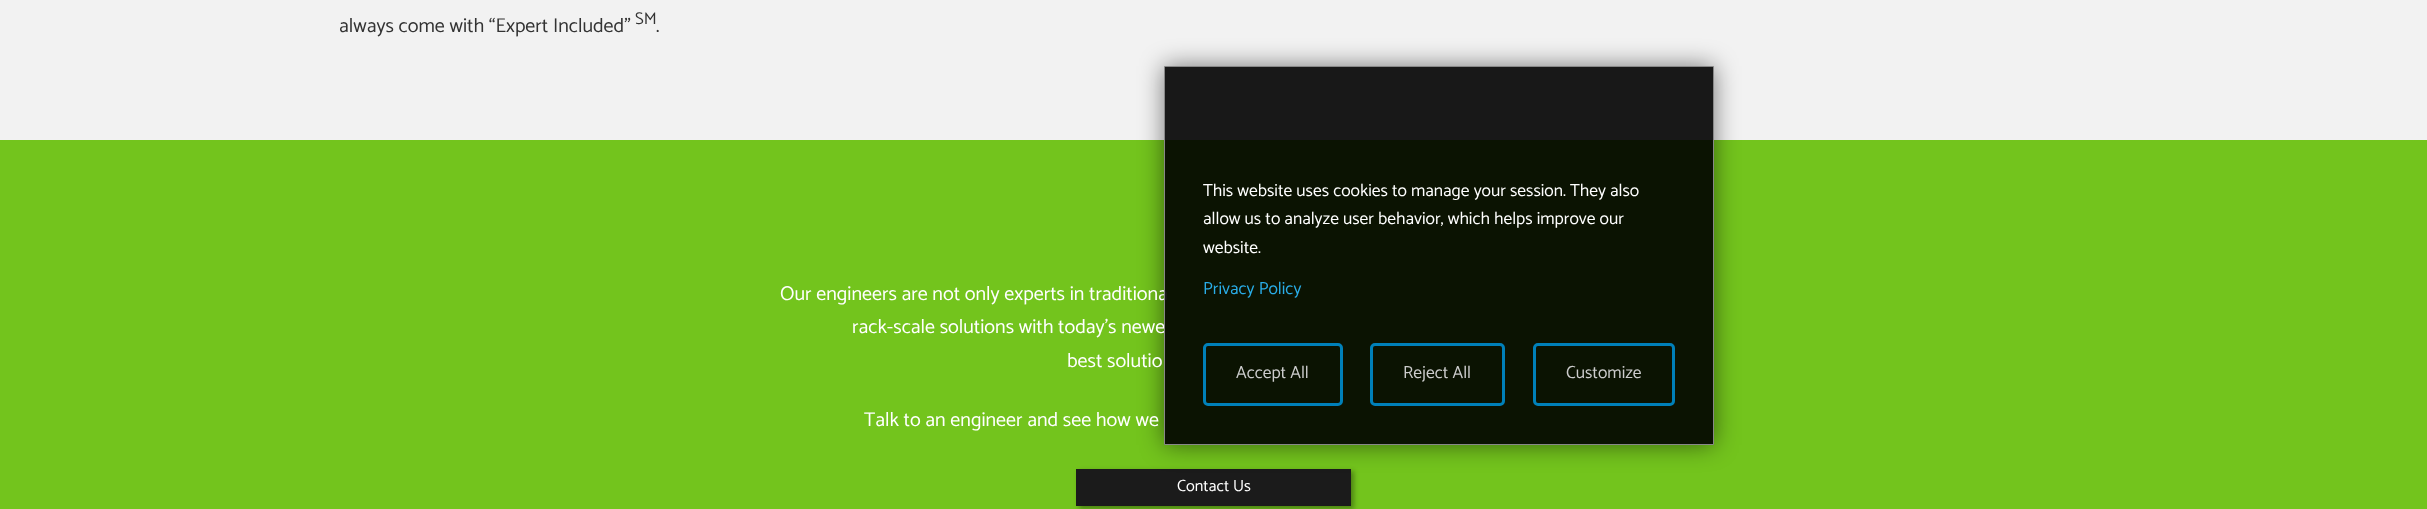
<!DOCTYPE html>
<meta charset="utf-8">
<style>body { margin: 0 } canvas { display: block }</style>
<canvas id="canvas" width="2427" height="509"></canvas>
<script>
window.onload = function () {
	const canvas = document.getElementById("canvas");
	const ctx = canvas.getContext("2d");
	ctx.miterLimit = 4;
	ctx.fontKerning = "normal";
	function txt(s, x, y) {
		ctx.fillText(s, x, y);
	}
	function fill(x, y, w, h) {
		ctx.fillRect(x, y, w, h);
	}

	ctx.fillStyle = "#F2F2F2";
	fill(0, 0, 2427, 509);
	ctx.fillStyle = "#73C41D";
	fill(0, 140, 2427, 369);
	ctx.fillStyle = "rgba(0, 0, 0, 0.33)";
	ctx.filter = "blur(2.5px)";
	ctx.beginPath();
	ctx.rect(1079, 471, 275, 38);
	ctx.fill();
	ctx.filter = "none";
	ctx.fillStyle = "#1B1B1B";
	fill(1076, 469, 275, 37);
	ctx.save();
	ctx.beginPath();
	ctx.moveTo(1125, 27);
	ctx.lineTo(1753, 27);
	ctx.lineTo(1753, 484);
	ctx.lineTo(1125, 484);
	ctx.closePath();
	ctx.moveTo(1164, 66);
	ctx.lineTo(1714, 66);
	ctx.lineTo(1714, 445);
	ctx.lineTo(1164, 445);
	ctx.closePath();
	ctx.clip("evenodd");
	ctx.fillStyle = "rgba(0, 0, 0, 0.5)";
	ctx.filter = "blur(12.5px)";
	ctx.beginPath();
	ctx.rect(1164, 66, 550, 379);
	ctx.fill();
	ctx.filter = "none";
	ctx.restore();
	ctx.font = "100 20px Catamaran";
	ctx.fillStyle = "#333333";
	txt("always come with “Expert Included”", 339, 32);
	ctx.font = "100 17px Catamaran";
	txt("SM", 635, 24);
	ctx.font = "100 20px Catamaran";
	txt(".", 656, 32);
	ctx.fillStyle = "#FFFFFF";
	txt("Our engineers are not only experts in traditiona", 780, 300);
	txt("rack-scale solutions with today's newe", 852, 333);
	txt("best solutio", 1067, 367);
	txt("Talk to an engineer and see how we", 864, 426);
	ctx.font = "100 16.25px Catamaran";
	txt("Contact Us", 1177, 491);
	ctx.fillStyle = "rgba(0, 0, 0, 0.9)";
	ctx.beginPath();
	ctx.rect(1164.5, 66.5, 549, 378);
	ctx.fill();
	ctx.strokeStyle = "#888888";
	ctx.stroke();
	ctx.font = "100 17.5px Catamaran";
	ctx.fillStyle = "#FFFFFF";
	txt("This website uses cookies to manage your session. They also", 1203, 196);
	txt("allow us to analyze user behavior, which helps improve our", 1203, 224);
	txt("website.", 1203, 253);
	ctx.fillStyle = "#2AADE8";
	txt("Privacy Policy", 1203, 294);
	ctx.beginPath();
	ctx.roundRect(1204.5, 344.5, 137, 60, 3.5);
	ctx.strokeStyle = "#0080B9";
	ctx.lineWidth = 3;
	ctx.stroke();
	ctx.fillStyle = "#CCCCCC";
	txt("Accept All", 1236, 378);
	ctx.beginPath();
	ctx.roundRect(1371.5, 344.5, 132, 60, 3.5);
	ctx.stroke();
	txt("Reject All", 1403, 378);
	ctx.beginPath();
	ctx.roundRect(1534.5, 344.5, 139, 60, 3.5);
	ctx.stroke();
	txt("Customize", 1566, 378);
};
</script>
